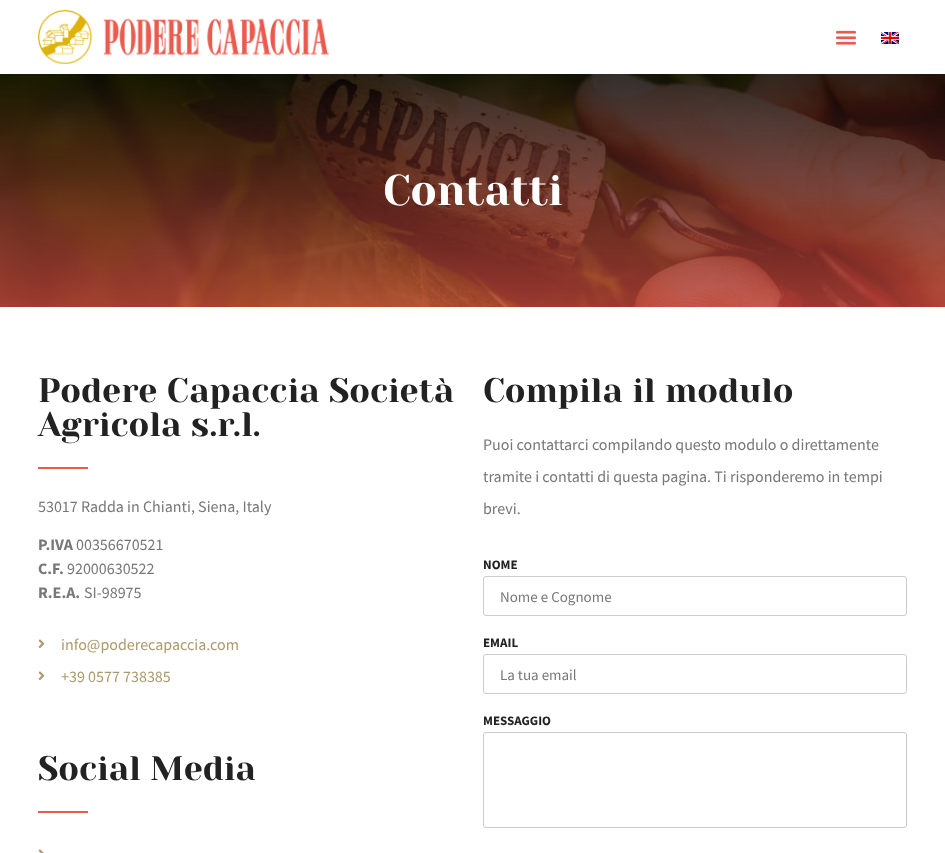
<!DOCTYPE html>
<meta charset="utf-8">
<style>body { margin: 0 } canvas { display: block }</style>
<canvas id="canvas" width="945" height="853"></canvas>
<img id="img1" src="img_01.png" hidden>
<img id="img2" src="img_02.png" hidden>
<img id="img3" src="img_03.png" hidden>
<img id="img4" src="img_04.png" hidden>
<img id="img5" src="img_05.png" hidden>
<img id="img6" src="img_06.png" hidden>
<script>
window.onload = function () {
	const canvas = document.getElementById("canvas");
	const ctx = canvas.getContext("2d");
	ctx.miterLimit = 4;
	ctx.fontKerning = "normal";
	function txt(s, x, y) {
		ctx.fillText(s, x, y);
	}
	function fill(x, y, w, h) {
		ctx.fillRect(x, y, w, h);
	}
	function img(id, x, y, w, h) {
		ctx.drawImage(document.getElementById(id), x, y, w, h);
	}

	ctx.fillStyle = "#FFFFFF";
	fill(0, 0, 945, 853);
	img("img1", 38, 10, 291, 54);
	img("img2", 835, 30, 22, 15);
	img("img3", 881, 32, 18, 12);
	img("img4", 0, 74, 945, 233);
	ctx.fillStyle = "#E95B4F";
	fill(38, 467, 50, 2);
	img("img5", 38, 639, 7, 10);
	img("img5", 38, 671, 7, 10);
	fill(38, 811, 50, 2);
	img("img6", 38, 849, 6, 4);
	ctx.beginPath();
	ctx.roundRect(483.5, 576.5, 423, 39, 2.5);
	ctx.strokeStyle = "#CCCCCC";
	ctx.stroke();
	ctx.beginPath();
	ctx.roundRect(483.5, 654.5, 423, 39, 2.5);
	ctx.stroke();
	ctx.beginPath();
	ctx.roundRect(483.5, 732.5, 423, 95, 2.5);
	ctx.stroke();
	ctx.font = "43px Yeseva One";
	ctx.fillStyle = "#FFFFFF";
	txt("Contatti", 383, 205);
	ctx.font = "34px Yeseva One";
	ctx.fillStyle = "#222222";
	txt("Podere Capaccia Società", 38, 402);
	txt("Agricola s.r.l.", 38, 436);
	ctx.font = "16px Source Sans Pro";
	ctx.fillStyle = "#777777";
	txt("53017 Radda in Chianti, Siena, Italy", 38, 512);
	ctx.font = "bold 16px Source Sans Pro";
	txt("P.IVA", 38, 550);
	ctx.font = "16px Source Sans Pro";
	txt("00356670521", 76, 550);
	ctx.font = "bold 16px Source Sans Pro";
	txt("C.F.", 38, 574);
	ctx.font = "16px Source Sans Pro";
	txt("92000630522", 67, 574);
	ctx.font = "bold 16px Source Sans Pro";
	txt("R.E.A.", 38, 598);
	ctx.font = "16px Source Sans Pro";
	txt("SI-98975", 84, 598);
	ctx.fillStyle = "#AB9A6B";
	txt("info@poderecapaccia.com", 61, 650);
	txt("+39 0577 738385", 61, 682);
	ctx.font = "34px Yeseva One";
	ctx.fillStyle = "#222222";
	txt("Social Media", 38, 780);
	txt("Compila il modulo", 483, 402);
	ctx.font = "16px Source Sans Pro";
	ctx.fillStyle = "#777777";
	txt("Puoi contattarci compilando questo modulo o direttamente", 483, 450);
	txt("tramite i contatti di questa pagina. Ti risponderemo in tempi", 483, 482);
	txt("brevi.", 483, 514);
	ctx.font = "bold 13px Source Sans Pro";
	ctx.fillStyle = "#222222";
	txt("NOME", 483, 569);
	ctx.font = "15px Source Sans Pro";
	ctx.fillStyle = "#777777";
	txt("Nome e Cognome", 500, 602);
	ctx.font = "bold 13px Source Sans Pro";
	ctx.fillStyle = "#222222";
	txt("EMAIL", 483, 647);
	ctx.font = "15px Source Sans Pro";
	ctx.fillStyle = "#777777";
	txt("La tua email", 500, 680);
	ctx.font = "bold 13px Source Sans Pro";
	ctx.fillStyle = "#222222";
	txt("MESSAGGIO", 483, 725);
};
</script>
